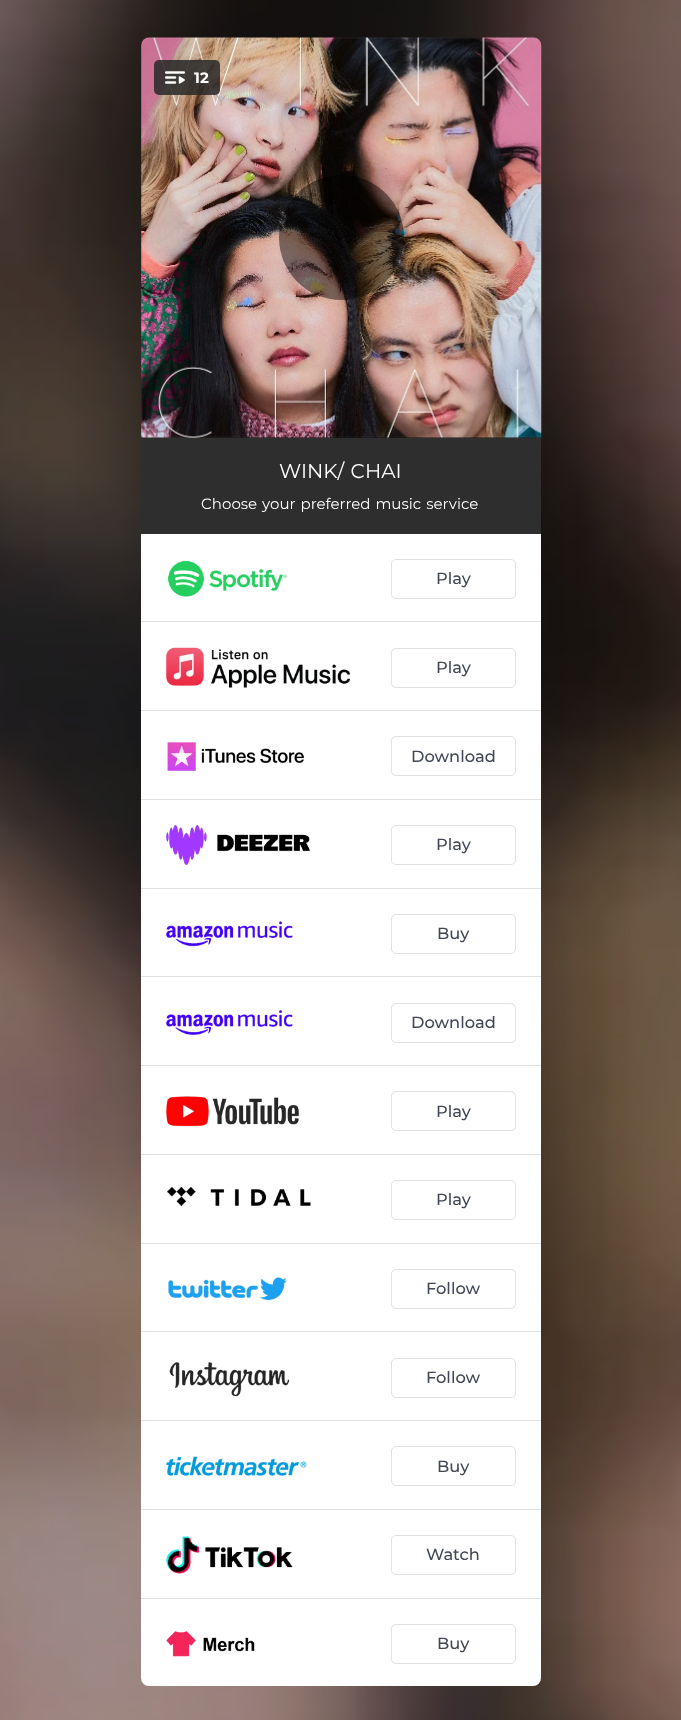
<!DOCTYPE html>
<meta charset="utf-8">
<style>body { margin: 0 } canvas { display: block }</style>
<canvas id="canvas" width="681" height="1720"></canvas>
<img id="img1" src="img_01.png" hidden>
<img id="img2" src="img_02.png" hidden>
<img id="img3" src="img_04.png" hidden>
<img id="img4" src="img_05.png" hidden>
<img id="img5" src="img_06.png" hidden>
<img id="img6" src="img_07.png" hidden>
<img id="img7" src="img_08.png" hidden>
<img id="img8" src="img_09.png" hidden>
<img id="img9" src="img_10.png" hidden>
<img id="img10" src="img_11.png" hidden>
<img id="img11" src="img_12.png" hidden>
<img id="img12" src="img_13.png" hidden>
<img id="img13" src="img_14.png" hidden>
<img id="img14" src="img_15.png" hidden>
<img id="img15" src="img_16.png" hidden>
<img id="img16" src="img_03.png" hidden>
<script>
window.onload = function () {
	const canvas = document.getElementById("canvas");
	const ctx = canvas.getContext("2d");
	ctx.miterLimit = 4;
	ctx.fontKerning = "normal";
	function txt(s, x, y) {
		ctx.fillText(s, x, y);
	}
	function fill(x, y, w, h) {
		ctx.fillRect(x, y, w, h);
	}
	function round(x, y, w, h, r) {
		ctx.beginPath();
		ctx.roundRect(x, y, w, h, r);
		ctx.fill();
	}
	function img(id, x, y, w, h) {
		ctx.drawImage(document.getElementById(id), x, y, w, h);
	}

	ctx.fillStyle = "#FFFFFF";
	fill(0, 0, 681, 1720);
	img("img1", 0, 0, 681, 1720);
	img("img2", 141, 37, 401, 401);
	ctx.fillStyle = "rgba(0, 0, 0, 0.45)";
	ctx.beginPath();
	ctx.arc(341.5, 237.5, 62.5, 0, Math.PI * 2);
	ctx.fill();
	ctx.fillStyle = "#2E2E2E";
	fill(141, 438, 400, 96);
	ctx.fillStyle = "#FFFFFF";
	ctx.beginPath();
	ctx.roundRect(141, 534, 400, 1152, [0, 0, 8, 8]);
	ctx.fill();
	ctx.fillStyle = "#E1E1E4";
	fill(141, 621, 400, 1);
	img("img3", 167, 560, 121, 37);
	ctx.beginPath();
	ctx.roundRect(391.5, 559.5, 124, 39, 4.5);
	ctx.strokeStyle = "#E1E1E4";
	ctx.stroke();
	fill(141, 710, 400, 1);
	img("img4", 166, 647, 184, 41);
	ctx.beginPath();
	ctx.roundRect(391.5, 648.5, 124, 39, 4.5);
	ctx.stroke();
	fill(141, 799, 400, 1);
	img("img5", 167, 742, 138, 29);
	ctx.beginPath();
	ctx.roundRect(391.5, 736.5, 124, 39, 4.5);
	ctx.stroke();
	fill(141, 888, 400, 1);
	img("img6", 166, 825, 144, 40);
	ctx.beginPath();
	ctx.roundRect(391.5, 825.5, 124, 39, 4.5);
	ctx.stroke();
	fill(141, 976, 400, 1);
	img("img7", 166, 921, 127, 26);
	ctx.beginPath();
	ctx.roundRect(391.5, 914.5, 124, 39, 4.5);
	ctx.stroke();
	fill(141, 1065, 400, 1);
	img("img8", 166, 1010, 127, 25);
	ctx.beginPath();
	ctx.roundRect(391.5, 1003.5, 124, 39, 4.5);
	ctx.stroke();
	fill(141, 1154, 400, 1);
	img("img9", 166, 1096, 133, 31);
	ctx.beginPath();
	ctx.roundRect(391.5, 1091.5, 124, 39, 4.5);
	ctx.stroke();
	fill(141, 1243, 400, 1);
	img("img10", 167, 1186, 144, 21);
	ctx.beginPath();
	ctx.roundRect(391.5, 1180.5, 124, 39, 4.5);
	ctx.stroke();
	fill(141, 1331, 400, 1);
	img("img11", 168, 1277, 119, 24);
	ctx.beginPath();
	ctx.roundRect(391.5, 1269.5, 124, 39, 4.5);
	ctx.stroke();
	fill(141, 1420, 400, 1);
	img("img12", 169, 1362, 121, 35);
	ctx.beginPath();
	ctx.roundRect(391.5, 1358.5, 124, 39, 4.5);
	ctx.stroke();
	fill(141, 1509, 400, 1);
	img("img13", 166, 1456, 141, 20);
	ctx.beginPath();
	ctx.roundRect(391.5, 1446.5, 124, 39, 4.5);
	ctx.stroke();
	fill(141, 1598, 400, 1);
	img("img14", 166, 1536, 127, 38);
	ctx.beginPath();
	ctx.roundRect(391.5, 1535.5, 124, 39, 4.5);
	ctx.stroke();
	img("img15", 166, 1631, 89, 26);
	ctx.beginPath();
	ctx.roundRect(391.5, 1624.5, 124, 39, 4.5);
	ctx.stroke();
	ctx.wordSpacing = "1px";
	ctx.font = "16.25px Montserrat";
	ctx.fillStyle = "#C1A39E";
	txt("Y", 216, 106);
	ctx.fillStyle = "rgba(40, 40, 40, 0.85)";
	round(154, 60, 66, 35, 5);
	ctx.wordSpacing = "0px";
	ctx.font = "bold 15px Montserrat";
	ctx.fillStyle = "#FFFFFF";
	txt("12", 194, 83);
	img("img16", 165, 71, 20, 13);
	ctx.wordSpacing = "1px";
	ctx.font = "20px Montserrat";
	txt("WINK/ CHAI", 279, 478);
	ctx.font = "15px Montserrat";
	txt("Choose your preferred music service", 201, 509);
	ctx.wordSpacing = "0px";
	ctx.font = "500 16.25px Montserrat";
	ctx.fillStyle = "#414754";
	txt("Play", 436, 584);
	txt("Play", 436, 673);
	txt("Download", 411, 762);
	txt("Play", 436, 850);
	txt("Buy", 437, 939);
	txt("Download", 411, 1028);
	txt("Play", 436, 1117);
	txt("Play", 436, 1205);
	txt("Follow", 426, 1294);
	txt("Follow", 426, 1383);
	txt("Buy", 437, 1472);
	txt("Watch", 426, 1560);
	txt("Buy", 437, 1649);
};
</script>
